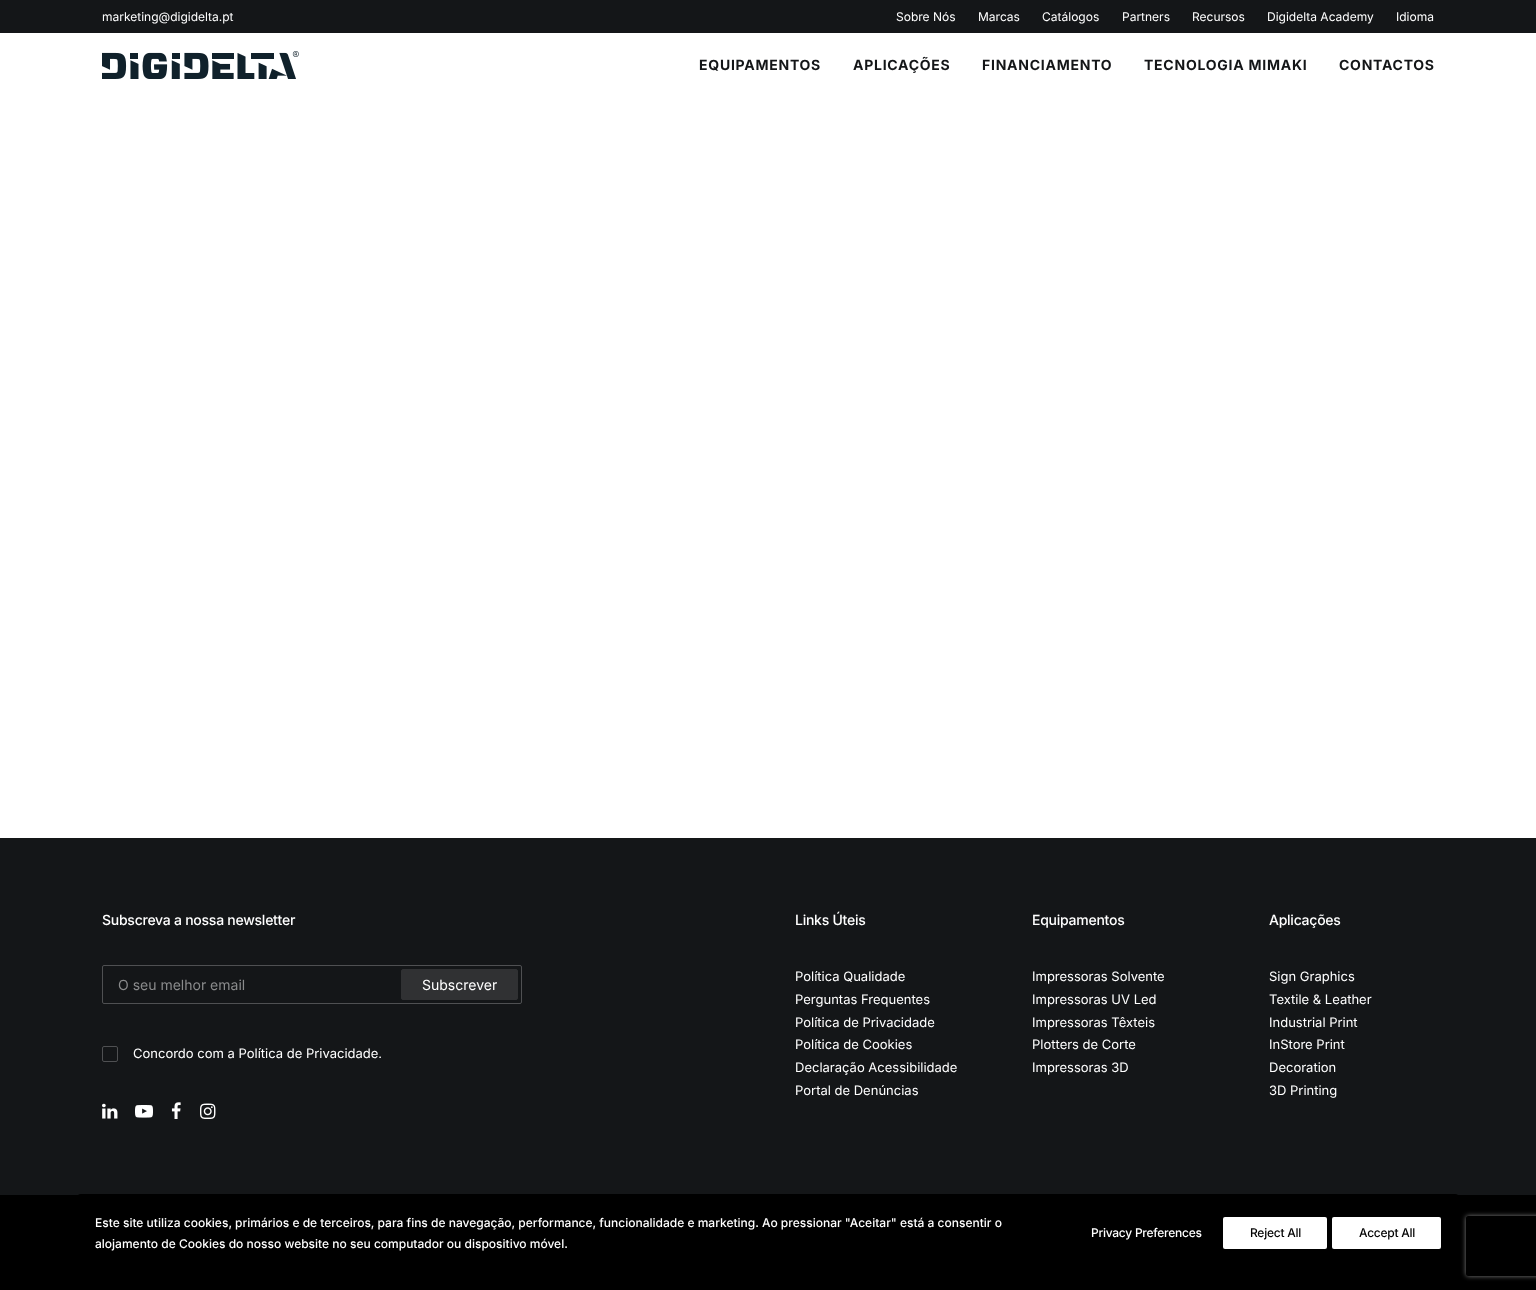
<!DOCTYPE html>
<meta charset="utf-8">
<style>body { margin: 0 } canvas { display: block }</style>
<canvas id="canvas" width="1536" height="1290"></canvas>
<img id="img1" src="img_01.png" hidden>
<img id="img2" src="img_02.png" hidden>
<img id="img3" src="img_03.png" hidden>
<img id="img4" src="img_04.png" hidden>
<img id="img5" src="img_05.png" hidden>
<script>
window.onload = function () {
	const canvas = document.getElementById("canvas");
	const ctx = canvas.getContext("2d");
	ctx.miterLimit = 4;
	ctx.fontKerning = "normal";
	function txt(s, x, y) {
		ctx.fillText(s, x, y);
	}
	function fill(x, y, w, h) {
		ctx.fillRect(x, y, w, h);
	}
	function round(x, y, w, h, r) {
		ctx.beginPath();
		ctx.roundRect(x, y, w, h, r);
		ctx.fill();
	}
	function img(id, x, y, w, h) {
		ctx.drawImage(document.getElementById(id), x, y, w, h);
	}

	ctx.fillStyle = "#FFFFFF";
	fill(0, 0, 1536, 1290);
	ctx.fillStyle = "#141618";
	fill(0, 0, 1536, 33);
	img("img1", 102, 51, 197, 28);
	fill(0, 838, 1536, 357);
	ctx.beginPath();
	ctx.roundRect(102.5, 965.5, 419, 38, 1.5);
	ctx.strokeStyle = "#4F5052";
	ctx.stroke();
	ctx.fillStyle = "#303133";
	ctx.beginPath();
	ctx.roundRect(401.5, 969.5, 116, 30, 1.5);
	ctx.fill();
	ctx.strokeStyle = "#303133";
	ctx.stroke();
	ctx.beginPath();
	ctx.roundRect(102.5, 1046.5, 15, 15, 1.5);
	ctx.strokeStyle = "#4F5052";
	ctx.stroke();
	img("img2", 102, 1103, 16, 16);
	img("img3", 135, 1105, 18, 13);
	img("img4", 171, 1102, 10, 17);
	img("img5", 200, 1103, 16, 16);
	ctx.fillStyle = "#000000";
	fill(0, 1195, 1536, 95);
	ctx.save();
	ctx.beginPath();
	ctx.moveTo(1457, 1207);
	ctx.lineTo(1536, 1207);
	ctx.lineTo(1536, 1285);
	ctx.lineTo(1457, 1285);
	ctx.closePath();
	ctx.moveTo(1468, 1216);
	ctx.lineTo(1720, 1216);
	ctx.bezierCurveTo(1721, 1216, 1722, 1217, 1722, 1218);
	ctx.lineTo(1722, 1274);
	ctx.bezierCurveTo(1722, 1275, 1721, 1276, 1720, 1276);
	ctx.lineTo(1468, 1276);
	ctx.bezierCurveTo(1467, 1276, 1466, 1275, 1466, 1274);
	ctx.lineTo(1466, 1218);
	ctx.bezierCurveTo(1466, 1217, 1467, 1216, 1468, 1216);
	ctx.closePath();
	ctx.clip("evenodd");
	ctx.fillStyle = "#808080";
	ctx.filter = "blur(2.5px)";
	ctx.beginPath();
	ctx.roundRect(1466, 1216, 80, 60, 2);
	ctx.fill();
	ctx.filter = "none";
	ctx.restore();
	round(77, 1194, 1382, 78, 4);
	ctx.fillStyle = "#FFFFFF";
	round(1223, 1217, 104, 32, 2);
	round(1332, 1217, 109, 32, 2);
	ctx.font = "12px Inter";
	txt("marketing@digidelta.pt", 102, 21);
	txt("Sobre Nós", 896, 21);
	txt("Marcas", 978, 21);
	txt("Catálogos", 1042, 21);
	txt("Partners", 1122, 21);
	txt("Recursos", 1192, 21);
	txt("Digidelta Academy", 1267, 21);
	txt("Idioma", 1396, 21);
	ctx.letterSpacing = "0.75px";
	ctx.font = "bold 14px Inter";
	ctx.fillStyle = "#141618";
	txt("EQUIPAMENTOS", 699, 70);
	txt("APLICAÇÕES", 853, 70);
	txt("FINANCIAMENTO", 982, 70);
	txt("TECNOLOGIA MIMAKI", 1144, 70);
	txt("CONTACTOS", 1339, 70);
	ctx.letterSpacing = "-0.25px";
	ctx.font = "500 14px Inter";
	ctx.fillStyle = "#FFFFFF";
	txt("Subscreva a nossa newsletter", 102, 925);
	ctx.letterSpacing = "0px";
	ctx.font = "14px Inter";
	ctx.fillStyle = "#8A8B8C";
	txt("O seu melhor email", 118, 990);
	ctx.fillStyle = "#FFFFFF";
	txt("Subscrever", 422, 990);
	ctx.font = "13px Inter";
	txt("Concordo com a Política de Privacidade.", 133, 1058);
	ctx.letterSpacing = "-0.25px";
	ctx.font = "500 14px Inter";
	txt("Links Úteis", 795, 925);
	ctx.letterSpacing = "0px";
	ctx.font = "13px Inter";
	txt("Política Qualidade", 795, 981);
	txt("Perguntas Frequentes", 795, 1004);
	txt("Política de Privacidade", 795, 1027);
	txt("Política de Cookies", 795, 1049);
	txt("Declaração Acessibilidade", 795, 1072);
	txt("Portal de Denúncias", 795, 1095);
	ctx.letterSpacing = "-0.25px";
	ctx.font = "500 14px Inter";
	txt("Equipamentos", 1032, 925);
	ctx.letterSpacing = "0px";
	ctx.font = "13px Inter";
	txt("Impressoras Solvente", 1032, 981);
	txt("Impressoras UV Led", 1032, 1004);
	txt("Impressoras Têxteis", 1032, 1027);
	txt("Plotters de Corte", 1032, 1049);
	txt("Impressoras 3D", 1032, 1072);
	ctx.letterSpacing = "-0.25px";
	ctx.font = "500 14px Inter";
	txt("Aplicações", 1269, 925);
	ctx.letterSpacing = "0px";
	ctx.font = "13px Inter";
	txt("Sign Graphics", 1269, 981);
	txt("Textile & Leather", 1269, 1004);
	txt("Industrial Print", 1269, 1027);
	txt("InStore Print", 1269, 1049);
	txt("Decoration", 1269, 1072);
	txt("3D Printing", 1269, 1095);
	ctx.font = "500 12px Inter";
	txt("Este site utiliza cookies, primários e de terceiros, para fins de navegação, performance, funcionalidade e marketing. Ao pressionar \"Aceitar\" está a consentir o", 95, 1227);
	txt("alojamento de Cookies do nosso website no seu computador ou dispositivo móvel.", 95, 1248);
	ctx.letterSpacing = "-0.25px";
	txt("Privacy Preferences", 1091, 1237);
	ctx.fillStyle = "#000000";
	txt("Reject All", 1250, 1237);
	txt("Accept All", 1359, 1237);
};
</script>
